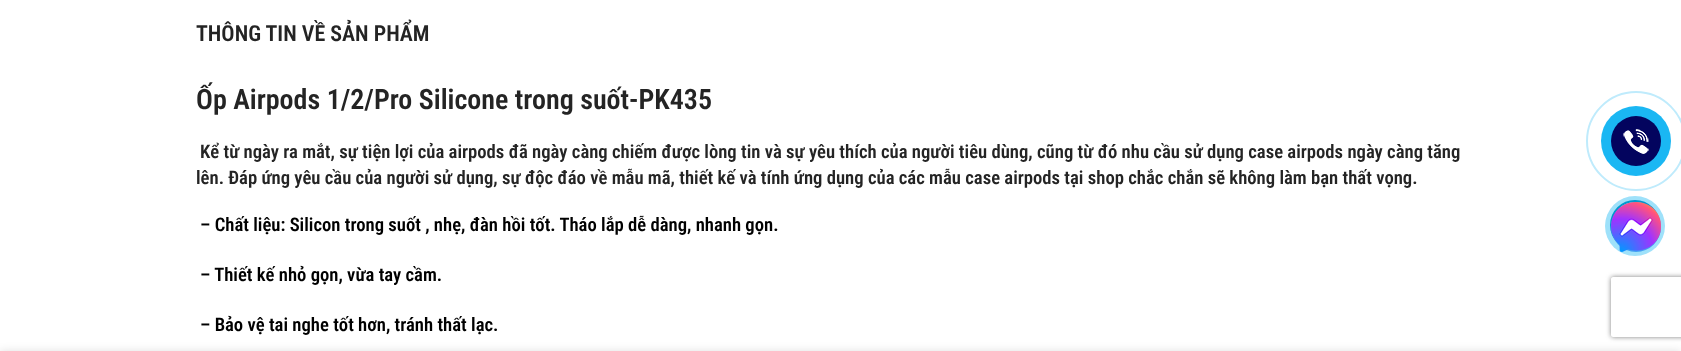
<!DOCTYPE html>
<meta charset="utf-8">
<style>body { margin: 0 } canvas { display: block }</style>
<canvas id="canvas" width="1681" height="351"></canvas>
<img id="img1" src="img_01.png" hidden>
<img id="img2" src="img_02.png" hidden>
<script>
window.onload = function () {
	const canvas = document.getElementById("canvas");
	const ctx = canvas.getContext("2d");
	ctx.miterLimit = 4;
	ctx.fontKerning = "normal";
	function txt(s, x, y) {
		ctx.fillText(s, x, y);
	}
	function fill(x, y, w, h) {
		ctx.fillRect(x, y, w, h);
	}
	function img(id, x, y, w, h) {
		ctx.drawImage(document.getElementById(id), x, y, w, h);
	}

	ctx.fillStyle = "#FFFFFF";
	fill(0, 0, 1681, 351);
	ctx.beginPath();
	ctx.arc(1636, 141, 49, 0, Math.PI * 2);
	ctx.strokeStyle = "#BFEBFC";
	ctx.lineWidth = 2;
	ctx.stroke();
	ctx.fillStyle = "#1AB7F3";
	ctx.beginPath();
	ctx.arc(1636, 141, 35, 0, Math.PI * 2);
	ctx.fill();
	ctx.fillStyle = "#03045E";
	ctx.beginPath();
	ctx.arc(1636, 141, 25, 0, Math.PI * 2);
	ctx.fill();
	img("img1", 1623, 129, 26, 25);
	ctx.beginPath();
	ctx.arc(1635, 225, 24, 0, Math.PI * 2);
	ctx.strokeStyle = "#0089B9";
	ctx.stroke();
	ctx.fillStyle = "rgba(0, 175, 242, 0.38)";
	ctx.beginPath();
	ctx.arc(1635, 226, 30, 0, Math.PI * 2);
	ctx.fill();
	ctx.fillStyle = "#43A1F3";
	ctx.beginPath();
	ctx.arc(1636, 227, 25, 0, Math.PI * 2);
	ctx.fill();
	img("img2", 1611, 202, 50, 50);
	ctx.save();
	ctx.beginPath();
	ctx.moveTo(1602, 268);
	ctx.lineTo(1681, 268);
	ctx.lineTo(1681, 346);
	ctx.lineTo(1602, 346);
	ctx.closePath();
	ctx.moveTo(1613, 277);
	ctx.lineTo(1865, 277);
	ctx.bezierCurveTo(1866, 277, 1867, 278, 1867, 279);
	ctx.lineTo(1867, 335);
	ctx.bezierCurveTo(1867, 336, 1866, 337, 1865, 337);
	ctx.lineTo(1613, 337);
	ctx.bezierCurveTo(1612, 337, 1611, 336, 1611, 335);
	ctx.lineTo(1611, 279);
	ctx.bezierCurveTo(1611, 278, 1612, 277, 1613, 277);
	ctx.closePath();
	ctx.clip("evenodd");
	ctx.fillStyle = "#808080";
	ctx.filter = "blur(2.5px)";
	ctx.beginPath();
	ctx.roundRect(1611, 277, 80, 60, 2);
	ctx.fill();
	ctx.filter = "none";
	ctx.restore();
	ctx.fillStyle = "rgba(0, 0, 0, 0.12)";
	ctx.filter = "blur(4.5px)";
	ctx.beginPath();
	ctx.rect(0, 351, 1681, 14);
	ctx.fill();
	ctx.filter = "none";
	ctx.font = "600 22px Roboto Condensed";
	ctx.fillStyle = "#242424";
	txt("THÔNG TIN VỀ SẢN PHẨM", 196, 41);
	ctx.font = "600 28px Roboto Condensed";
	txt("Ốp Airpods 1/2/Pro Silicone trong suốt-PK435", 196, 109);
	ctx.font = "600 18.67px Roboto Condensed";
	txt("Kể từ ngày ra mắt, sự tiện lợi của airpods đã ngày càng chiếm được lòng tin và sự yêu thích của người tiêu dùng, cũng từ đó nhu cầu sử dụng case airpods ngày càng tăng", 200, 158);
	txt("lên. Đáp ứng yêu cầu của người sử dụng, sự độc đáo về mẫu mã, thiết kế và tính ứng dụng của các mẫu case airpods tại shop chắc chắn sẽ không làm bạn thất vọng.", 196, 184);
	ctx.fillStyle = "#000000";
	txt("– Chất liệu: Silicon trong suốt , nhẹ, đàn hồi tốt. Tháo lắp dễ dàng, nhanh gọn.", 200, 231);
	txt("– Thiết kế nhỏ gọn, vừa tay cầm.", 200, 281);
	txt("– Bảo vệ tai nghe tốt hơn, tránh thất lạc.", 200, 331);
};
</script>
